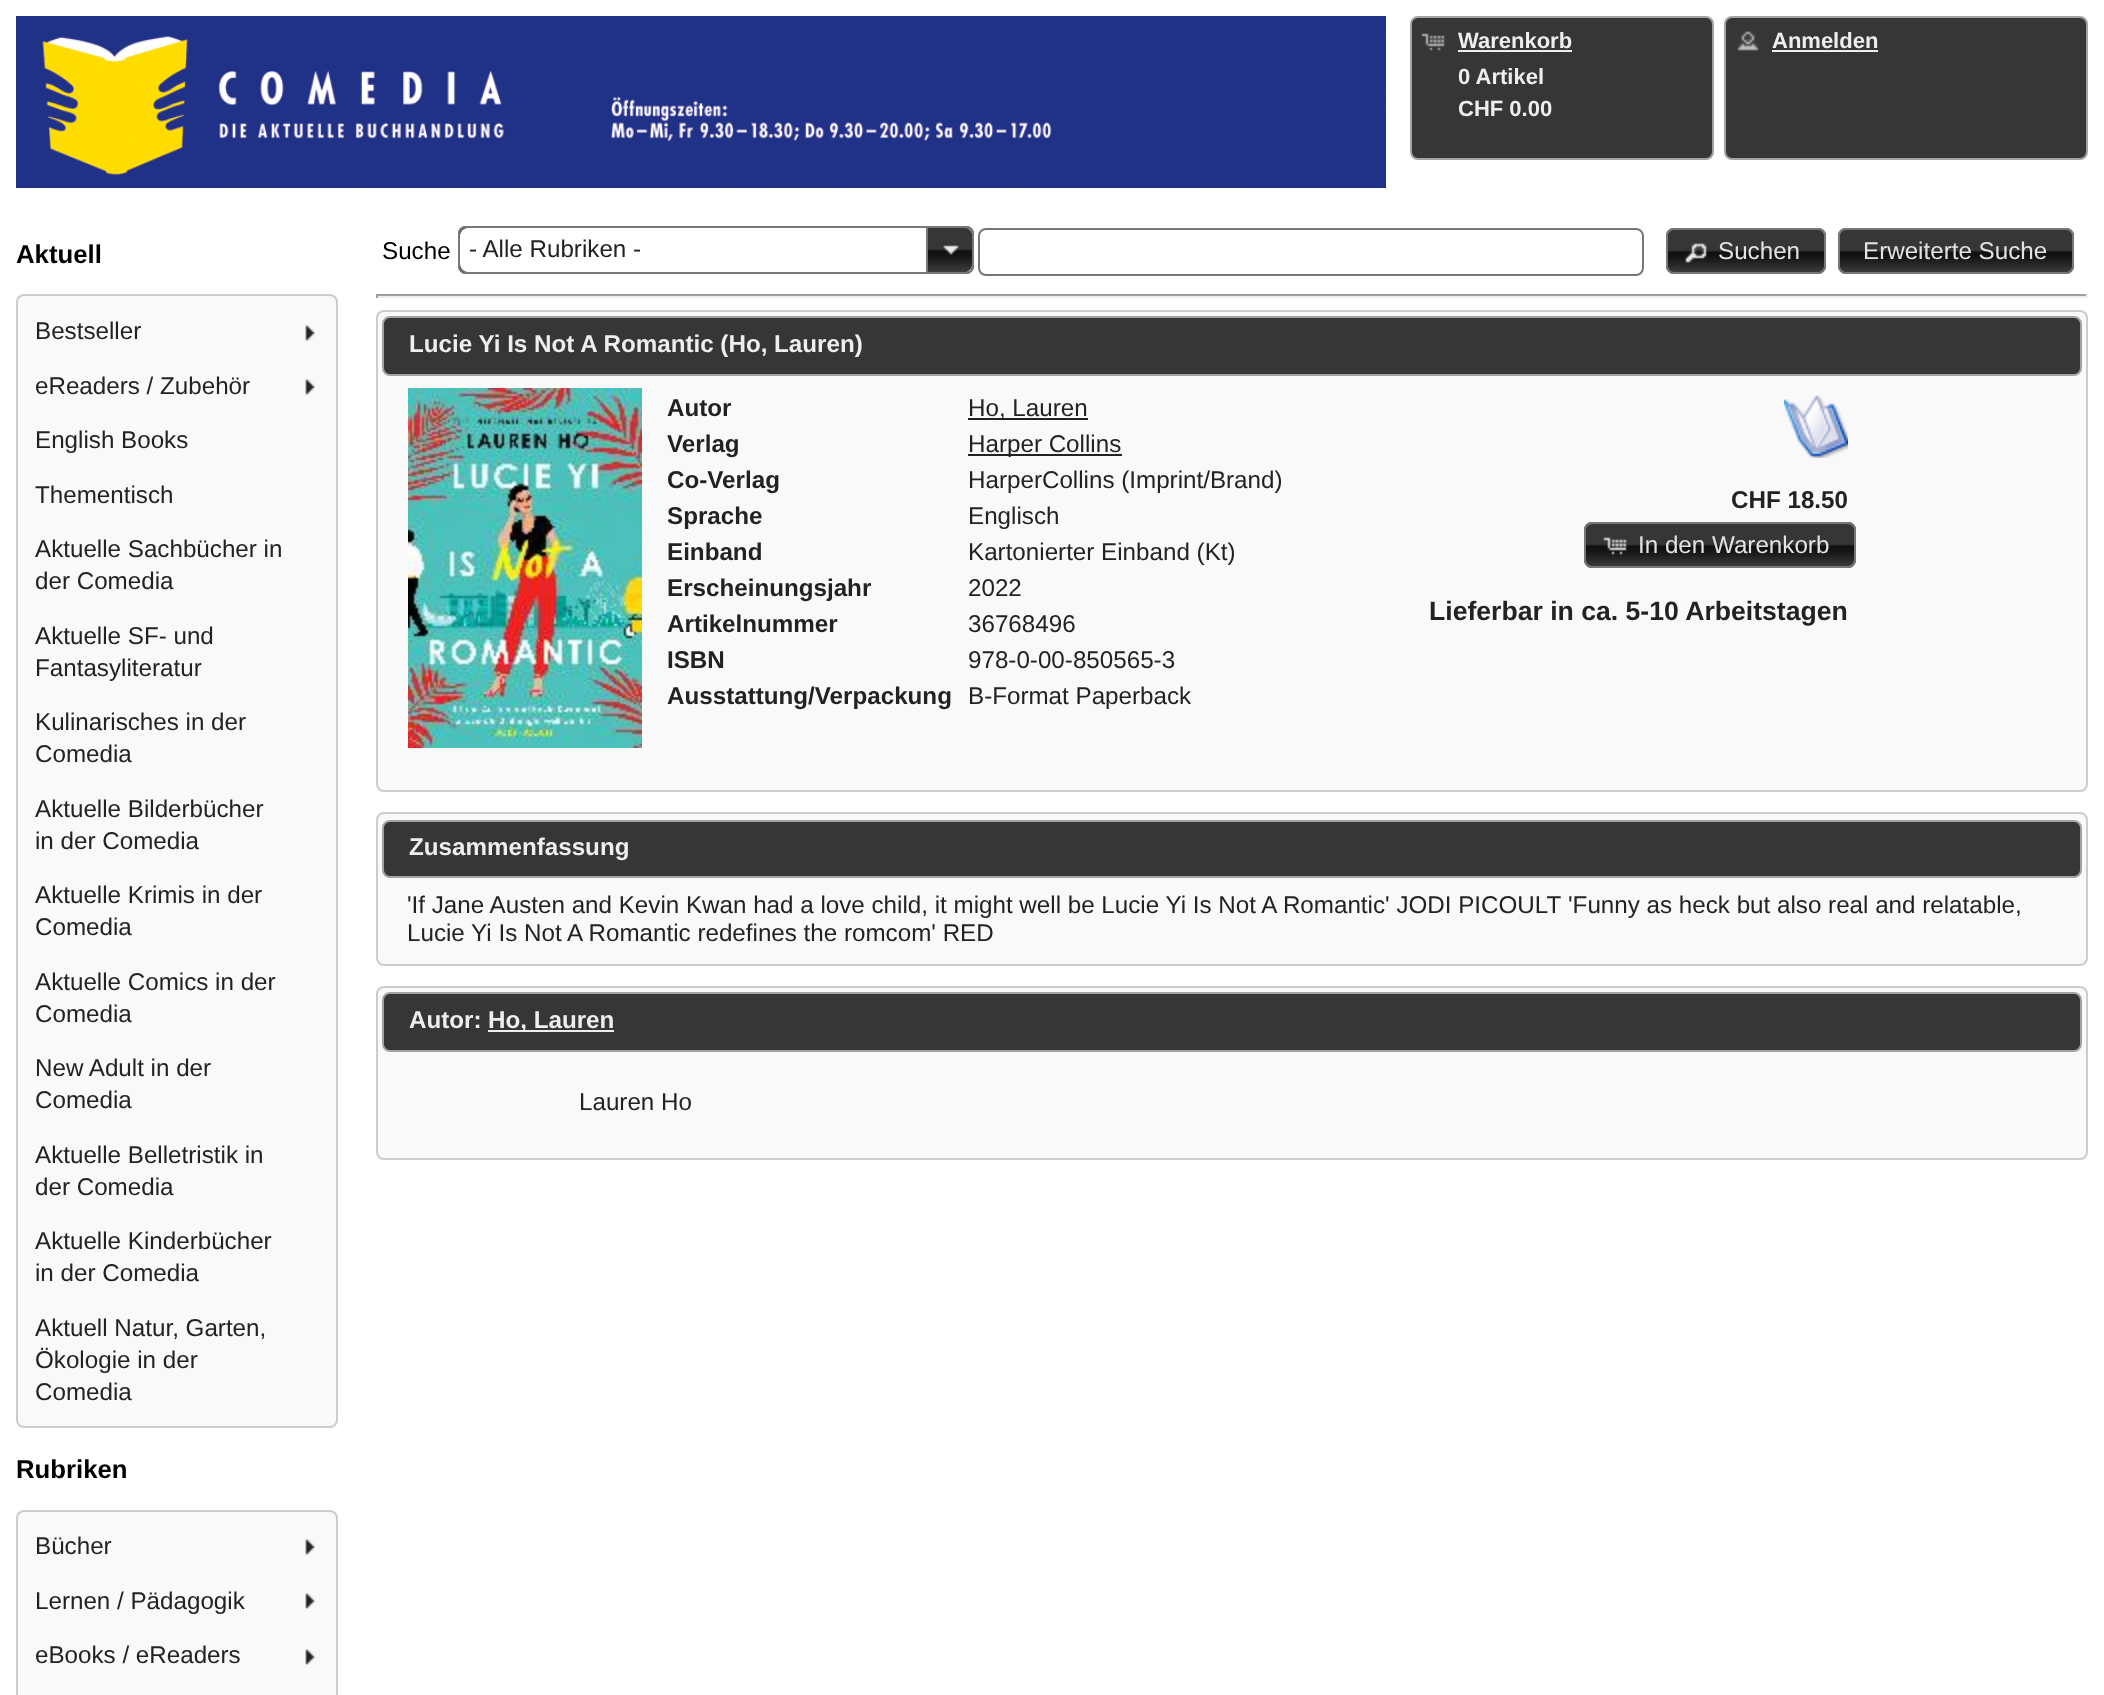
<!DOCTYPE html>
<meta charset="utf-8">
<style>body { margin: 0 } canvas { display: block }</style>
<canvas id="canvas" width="2104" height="1695"></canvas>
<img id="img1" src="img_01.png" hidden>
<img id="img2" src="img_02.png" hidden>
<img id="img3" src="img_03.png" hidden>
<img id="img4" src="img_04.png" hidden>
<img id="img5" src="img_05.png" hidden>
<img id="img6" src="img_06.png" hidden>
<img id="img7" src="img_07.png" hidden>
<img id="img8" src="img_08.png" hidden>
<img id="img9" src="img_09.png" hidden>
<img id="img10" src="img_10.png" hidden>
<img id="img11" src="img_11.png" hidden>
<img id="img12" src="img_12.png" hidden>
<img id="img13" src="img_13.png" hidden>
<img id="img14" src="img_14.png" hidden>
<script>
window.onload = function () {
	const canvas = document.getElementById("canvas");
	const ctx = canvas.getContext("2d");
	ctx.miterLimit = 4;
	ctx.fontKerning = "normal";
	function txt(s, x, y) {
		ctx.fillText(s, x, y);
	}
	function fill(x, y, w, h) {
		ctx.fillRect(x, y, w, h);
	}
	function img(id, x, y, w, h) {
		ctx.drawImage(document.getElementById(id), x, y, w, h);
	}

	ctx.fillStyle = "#FFFFFF";
	fill(0, 0, 2104, 1695);
	img("img1", 16, 16, 1370, 172);
	ctx.fillStyle = "#363636";
	ctx.beginPath();
	ctx.roundRect(1411, 17, 302, 142, 7);
	ctx.fill();
	ctx.strokeStyle = "#A3A3A3";
	ctx.lineWidth = 2;
	ctx.stroke();
	img("img2", 1421, 33, 24, 18);
	ctx.fillStyle = "#EEEEEE";
	fill(1458, 50, 114, 2);
	ctx.fillStyle = "#363636";
	ctx.beginPath();
	ctx.roundRect(1725, 17, 362, 142, 7);
	ctx.fill();
	ctx.stroke();
	img("img3", 1737, 31, 22, 20);
	ctx.fillStyle = "#EEEEEE";
	fill(1772, 50, 106, 2);
	ctx.fillStyle = "#F9F9F9";
	ctx.beginPath();
	ctx.roundRect(17, 295, 320, 1132, 7);
	ctx.fill();
	ctx.strokeStyle = "#CCCCCC";
	ctx.stroke();
	img("img4", 305, 325, 10, 16);
	img("img4", 305, 379, 10, 16);
	ctx.beginPath();
	ctx.roundRect(17, 1511, 320, 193, 7);
	ctx.fill();
	ctx.stroke();
	img("img4", 305, 1539, 10, 16);
	img("img4", 305, 1593, 10, 16);
	img("img4", 305, 1649, 10, 16);
	img("img5", 458, 226, 516, 48);
	ctx.beginPath();
	ctx.roundRect(459, 227, 514, 46, 7);
	ctx.strokeStyle = "#777777";
	ctx.stroke();
	ctx.save();
	ctx.beginPath();
	ctx.roundRect(460, 228, 512, 44, 6);
	ctx.clip();
	ctx.fillStyle = "#FFFFFF";
	ctx.beginPath();
	ctx.roundRect(460, 228, 512, 44, [8, 6, 6, 8]);
	ctx.fill();
	ctx.restore();
	ctx.fillStyle = "#111111";
	ctx.beginPath();
	ctx.roundRect(926, 228, 46, 44, [0, 8, 8, 0]);
	ctx.fill();
	img("img6", 928, 228, 44, 44);
	ctx.fillStyle = "#777777";
	fill(926, 228, 2, 44);
	img("img7", 943, 245, 16, 10);
	ctx.beginPath();
	ctx.roundRect(979, 229, 664, 46, 7);
	ctx.stroke();
	img("img8", 1666, 228, 160, 46);
	ctx.beginPath();
	ctx.roundRect(1667, 229, 158, 44, 7);
	ctx.stroke();
	img("img9", 1685, 243, 22, 20);
	img("img10", 1838, 228, 236, 46);
	ctx.beginPath();
	ctx.roundRect(1839, 229, 234, 44, 7);
	ctx.stroke();
	ctx.fillStyle = "#9F9F9F";
	fill(376, 294, 1712, 2);
	ctx.fillStyle = "#EEEEEE";
	fill(2086, 294, 2, 4);
	fill(376, 296, 1712, 2);
	ctx.fillStyle = "#9F9F9F";
	fill(376, 294, 2, 4);
	ctx.fillStyle = "#F9F9F9";
	ctx.beginPath();
	ctx.roundRect(377, 311, 1710, 480, 7);
	ctx.fill();
	ctx.strokeStyle = "#CCCCCC";
	ctx.stroke();
	ctx.fillStyle = "#363636";
	ctx.beginPath();
	ctx.roundRect(383, 317, 1698, 58, 7);
	ctx.fill();
	ctx.strokeStyle = "#A3A3A3";
	ctx.stroke();
	img("img11", 408, 388, 234, 360);
	ctx.fillStyle = "#222222";
	fill(968, 418, 120, 2);
	fill(968, 454, 154, 2);
	img("img12", 1784, 395, 64, 63);
	img("img13", 1584, 522, 272, 46);
	ctx.beginPath();
	ctx.roundRect(1585, 523, 270, 44, 7);
	ctx.strokeStyle = "#777777";
	ctx.stroke();
	img("img14", 1603, 537, 24, 18);
	ctx.fillStyle = "#F9F9F9";
	ctx.beginPath();
	ctx.roundRect(377, 813, 1710, 152, 7);
	ctx.fill();
	ctx.strokeStyle = "#CCCCCC";
	ctx.stroke();
	ctx.fillStyle = "#363636";
	ctx.beginPath();
	ctx.roundRect(383, 821, 1698, 56, 7);
	ctx.fill();
	ctx.strokeStyle = "#A3A3A3";
	ctx.stroke();
	ctx.fillStyle = "#F9F9F9";
	ctx.beginPath();
	ctx.roundRect(377, 987, 1710, 172, 7);
	ctx.fill();
	ctx.strokeStyle = "#CCCCCC";
	ctx.stroke();
	ctx.fillStyle = "#363636";
	ctx.beginPath();
	ctx.roundRect(383, 993, 1698, 58, 7);
	ctx.fill();
	ctx.strokeStyle = "#A3A3A3";
	ctx.stroke();
	ctx.fillStyle = "#EEEEEE";
	fill(488, 1030, 126, 2);
	ctx.font = "bold 22px Liberation Sans";
	txt("Warenkorb", 1458, 48);
	txt("0 Artikel", 1458, 84);
	txt("CHF 0.00", 1458, 116);
	txt("Anmelden", 1772, 48);
	ctx.font = "bold 25.75px Liberation Sans";
	ctx.fillStyle = "#000000";
	txt("Aktuell", 16, 263);
	ctx.font = "24.2px Liberation Sans";
	ctx.fillStyle = "#222222";
	txt("Bestseller", 35, 339);
	txt("eReaders / Zubehör", 35, 394);
	txt("English Books", 35, 448);
	txt("Thementisch", 35, 503);
	txt("Aktuelle Sachbücher in", 35, 557);
	txt("der Comedia", 35, 589);
	txt("Aktuelle SF- und", 35, 644);
	txt("Fantasyliteratur", 35, 676);
	txt("Kulinarisches in der", 35, 730);
	txt("Comedia", 35, 762);
	txt("Aktuelle Bilderbücher", 35, 817);
	txt("in der Comedia", 35, 849);
	txt("Aktuelle Krimis in der", 35, 903);
	txt("Comedia", 35, 935);
	txt("Aktuelle Comics in der", 35, 990);
	txt("Comedia", 35, 1022);
	txt("New Adult in der", 35, 1076);
	txt("Comedia", 35, 1108);
	txt("Aktuelle Belletristik in", 35, 1163);
	txt("der Comedia", 35, 1195);
	txt("Aktuelle Kinderbücher", 35, 1249);
	txt("in der Comedia", 35, 1281);
	txt("Aktuell Natur, Garten,", 35, 1336);
	txt("Ökologie in der", 35, 1368);
	txt("Comedia", 35, 1400);
	ctx.font = "bold 25.75px Liberation Sans";
	ctx.fillStyle = "#000000";
	txt("Rubriken", 16, 1478);
	ctx.font = "24.2px Liberation Sans";
	ctx.fillStyle = "#222222";
	txt("Bücher", 35, 1554);
	txt("Lernen / Pädagogik", 35, 1609);
	txt("eBooks / eReaders", 35, 1663);
	ctx.fillStyle = "#000000";
	txt("Suche", 382, 259);
	ctx.fillStyle = "#222222";
	txt("- Alle Rubriken -", 469, 257);
	ctx.fillStyle = "#E3E3E3";
	txt("Suchen", 1718, 259);
	txt("Erweiterte Suche", 1863, 259);
	ctx.font = "bold 24.2px Liberation Sans";
	ctx.fillStyle = "#EEEEEE";
	txt("Lucie Yi Is Not A Romantic (Ho, Lauren)", 409, 352);
	ctx.fillStyle = "#222222";
	txt("Autor", 667, 416);
	ctx.font = "24.2px Liberation Sans";
	txt("Ho, Lauren", 968, 416);
	ctx.font = "bold 24.2px Liberation Sans";
	txt("Verlag", 667, 452);
	ctx.font = "24.2px Liberation Sans";
	txt("Harper Collins", 968, 452);
	ctx.font = "bold 24.2px Liberation Sans";
	txt("Co-Verlag", 667, 488);
	ctx.font = "24.2px Liberation Sans";
	txt("HarperCollins (Imprint/Brand)", 968, 488);
	ctx.font = "bold 24.2px Liberation Sans";
	txt("Sprache", 667, 524);
	ctx.font = "24.2px Liberation Sans";
	txt("Englisch", 968, 524);
	ctx.font = "bold 24.2px Liberation Sans";
	txt("Einband", 667, 560);
	ctx.font = "24.2px Liberation Sans";
	txt("Kartonierter Einband (Kt)", 968, 560);
	ctx.font = "bold 24.2px Liberation Sans";
	txt("Erscheinungsjahr", 667, 596);
	ctx.font = "24.2px Liberation Sans";
	txt("2022", 968, 596);
	ctx.font = "bold 24.2px Liberation Sans";
	txt("Artikelnummer", 667, 632);
	ctx.font = "24.2px Liberation Sans";
	txt("36768496", 968, 632);
	ctx.font = "bold 24.2px Liberation Sans";
	txt("ISBN", 667, 668);
	ctx.font = "24.2px Liberation Sans";
	txt("978-0-00-850565-3", 968, 668);
	ctx.font = "bold 24.2px Liberation Sans";
	txt("Ausstattung/Verpackung", 667, 704);
	ctx.font = "24.2px Liberation Sans";
	txt("B-Format Paperback", 968, 704);
	ctx.font = "bold 24.2px Liberation Sans";
	txt("CHF 18.50", 1731, 508);
	ctx.font = "24.2px Liberation Sans";
	ctx.fillStyle = "#E3E3E3";
	txt("In den Warenkorb", 1638, 553);
	ctx.font = "bold 26.6px Liberation Sans";
	ctx.fillStyle = "#222222";
	txt("Lieferbar in ca. 5-10 Arbeitstagen", 1429, 620);
	ctx.font = "bold 24.2px Liberation Sans";
	ctx.fillStyle = "#EEEEEE";
	txt("Zusammenfassung", 409, 855);
	ctx.font = "24.2px Liberation Sans";
	ctx.fillStyle = "#222222";
	txt("'If Jane Austen and Kevin Kwan had a love child, it might well be Lucie Yi Is Not A Romantic' JODI PICOULT", 407, 913);
	txt("'Funny as heck but also real and relatable,", 1568, 913);
	txt("Lucie Yi Is Not A Romantic redefines the romcom' RED", 407, 941);
	ctx.font = "bold 24.2px Liberation Sans";
	ctx.fillStyle = "#EEEEEE";
	txt("Autor:", 409, 1028);
	txt("Ho, Lauren", 488, 1028);
	ctx.font = "24.2px Liberation Sans";
	ctx.fillStyle = "#222222";
	txt("Lauren Ho", 579, 1110);
};
</script>
